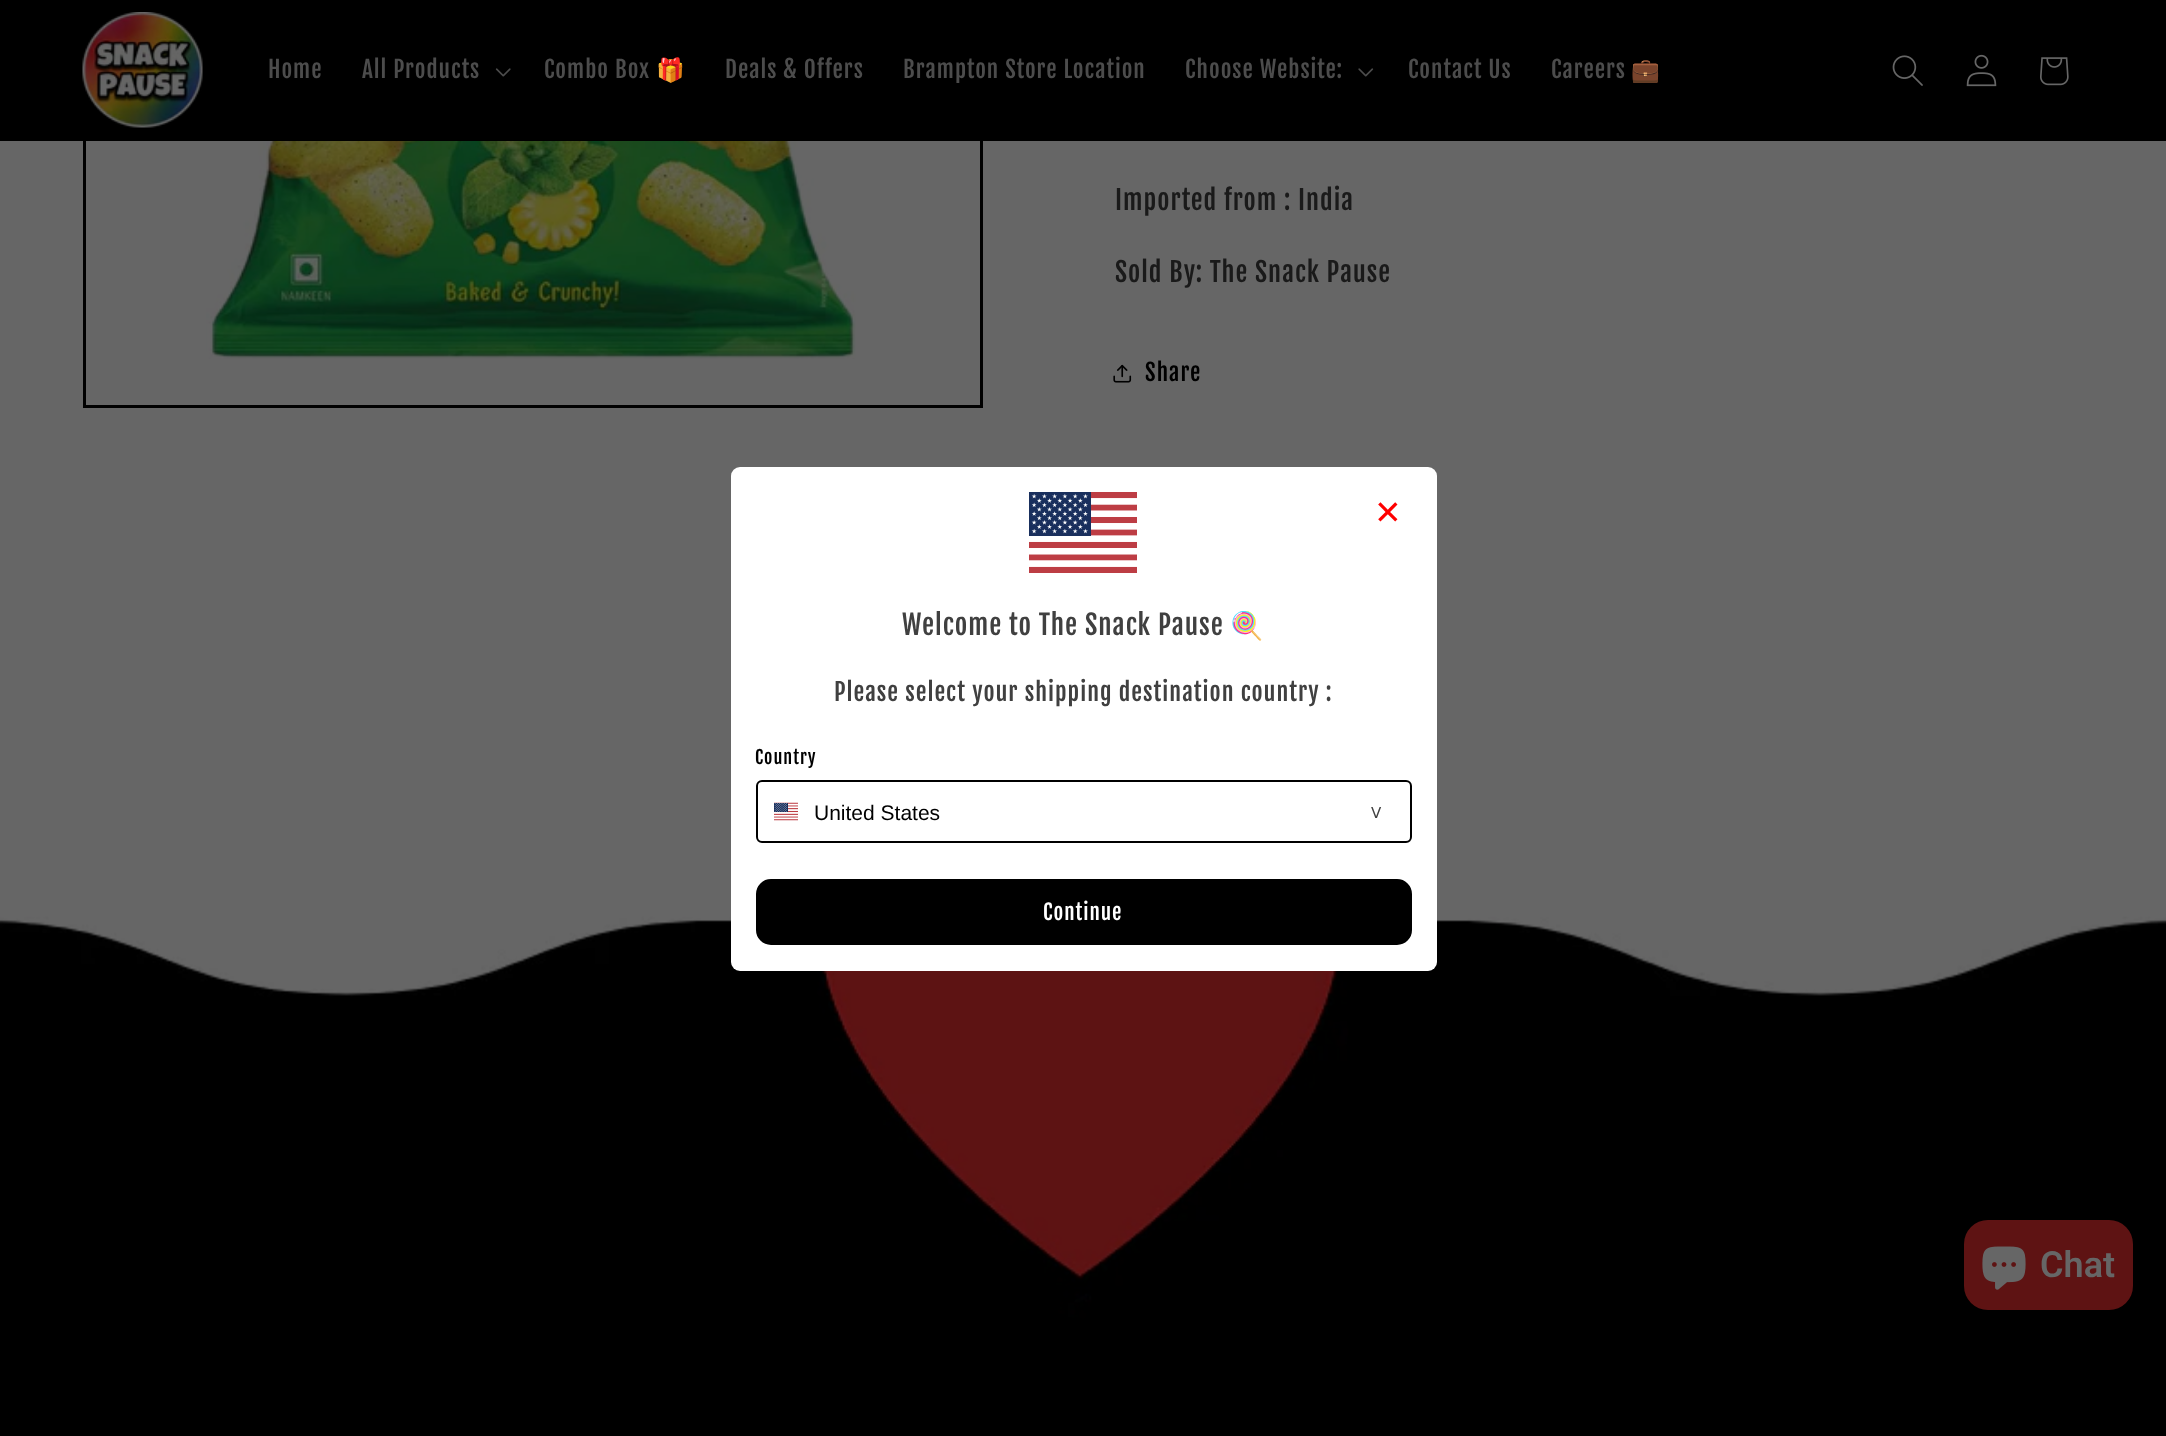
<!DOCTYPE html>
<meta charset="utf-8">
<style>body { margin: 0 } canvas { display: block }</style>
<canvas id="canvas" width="2166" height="1436"></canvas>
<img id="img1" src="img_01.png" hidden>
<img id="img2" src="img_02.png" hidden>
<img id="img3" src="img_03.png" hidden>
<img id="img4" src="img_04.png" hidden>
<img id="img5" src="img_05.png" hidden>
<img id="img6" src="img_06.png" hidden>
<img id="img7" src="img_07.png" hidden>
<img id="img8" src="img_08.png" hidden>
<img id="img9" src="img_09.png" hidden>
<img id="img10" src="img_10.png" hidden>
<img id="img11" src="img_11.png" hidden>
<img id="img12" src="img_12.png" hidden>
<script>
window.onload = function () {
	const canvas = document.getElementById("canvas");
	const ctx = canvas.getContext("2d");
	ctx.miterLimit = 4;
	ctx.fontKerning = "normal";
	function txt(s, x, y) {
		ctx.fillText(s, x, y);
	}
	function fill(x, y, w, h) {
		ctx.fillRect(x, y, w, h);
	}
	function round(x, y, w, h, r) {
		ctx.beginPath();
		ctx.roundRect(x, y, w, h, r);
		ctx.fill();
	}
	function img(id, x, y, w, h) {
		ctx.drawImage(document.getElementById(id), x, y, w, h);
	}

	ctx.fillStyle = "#666666";
	fill(0, 0, 2166, 1436);
	ctx.strokeStyle = "#000000";
	ctx.lineWidth = 3;
	ctx.strokeRect(84.5, -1.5, 897, 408);
	ctx.fillStyle = "#000000";
	fill(0, 0, 2166, 141);
	img("img1", 82, 12, 121, 116);
	img("img2", 495, 68, 16, 9);
	img("img3", 1358, 68, 16, 9);
	img("img4", 1892, 55, 31, 31);
	img("img5", 1966, 54, 31, 33);
	img("img6", 2040, 57, 29, 29);
	img("img7", 206, 141, 650, 218);
	img("img8", 1113, 364, 19, 19);
	img("img9", 0, 773, 2166, 601);
	ctx.fillStyle = "#FFFFFF";
	round(731, 467, 706, 504, 9);
	img("img10", 1029, 492, 108, 81);
	ctx.beginPath();
	ctx.roundRect(757, 781, 654, 61, 5);
	ctx.lineWidth = 2;
	ctx.stroke();
	img("img11", 774, 802, 24, 19);
	ctx.fillStyle = "#000000";
	ctx.beginPath();
	ctx.roundRect(757, 880, 654, 64, 14);
	ctx.fill();
	ctx.stroke();
	ctx.fillStyle = "#5E1313";
	round(1964, 1220, 169, 90, 24);
	img("img12", 1982, 1246, 44, 44);
	ctx.fillStyle = "#000000";
	fill(0, 1374, 2166, 62);
	ctx.letterSpacing = "1px";
	ctx.font = "23.1px Fjalla One";
	ctx.fillStyle = "#4C4C4C";
	txt("Home", 268, 78);
	txt("All Products", 362, 78);
	txt("Combo Box", 544, 78);
	ctx.font = "23.1px Noto Color Emoji";
	txt("🎁", 656, 78);
	ctx.font = "23.1px Fjalla One";
	txt("Deals & Offers", 725, 78);
	txt("Brampton Store Location", 903, 78);
	txt("Choose Website:", 1185, 78);
	txt("Contact Us", 1408, 78);
	txt("Careers", 1551, 78);
	ctx.font = "23.1px Noto Color Emoji";
	txt("💼", 1631, 78);
	ctx.font = "26.4px Fjalla One";
	ctx.fillStyle = "#1A1A1A";
	txt("Imported from : India", 1115, 210);
	txt("Sold By: The Snack Pause", 1115, 282);
	ctx.font = "23.1px Fjalla One";
	ctx.fillStyle = "#000000";
	txt("Share", 1145, 381);
	ctx.letterSpacing = "0px";
	ctx.font = "33px DejaVu Sans";
	ctx.fillStyle = "#FF0000";
	txt("✕", 1374, 524);
	ctx.letterSpacing = "1px";
	ctx.font = "27px Fjalla One";
	ctx.fillStyle = "#404040";
	txt("Welcome to The Snack Pause", 902, 635);
	ctx.font = "27px Noto Color Emoji";
	txt("🍭", 1230, 635);
	ctx.font = "24px Fjalla One";
	txt("Please select your shipping destination country :", 834, 701);
	ctx.font = "18px Fjalla One";
	ctx.fillStyle = "#000000";
	txt("Country", 755, 764);
	ctx.letterSpacing = "0px";
	ctx.font = "21px Liberation Sans";
	txt("United States", 814, 820);
	ctx.letterSpacing = "10px";
	ctx.font = "15px DejaVu Sans";
	ctx.fillStyle = "#404040";
	txt("ᐯ", 1371, 818);
	ctx.letterSpacing = "1px";
	ctx.font = "21px Fjalla One";
	ctx.fillStyle = "#FFFFFF";
	txt("Continue", 1043, 920);
	ctx.letterSpacing = "0px";
	ctx.font = "600 36px Roboto";
	ctx.fillStyle = "#666666";
	txt("Chat", 2040, 1277);
};
</script>
